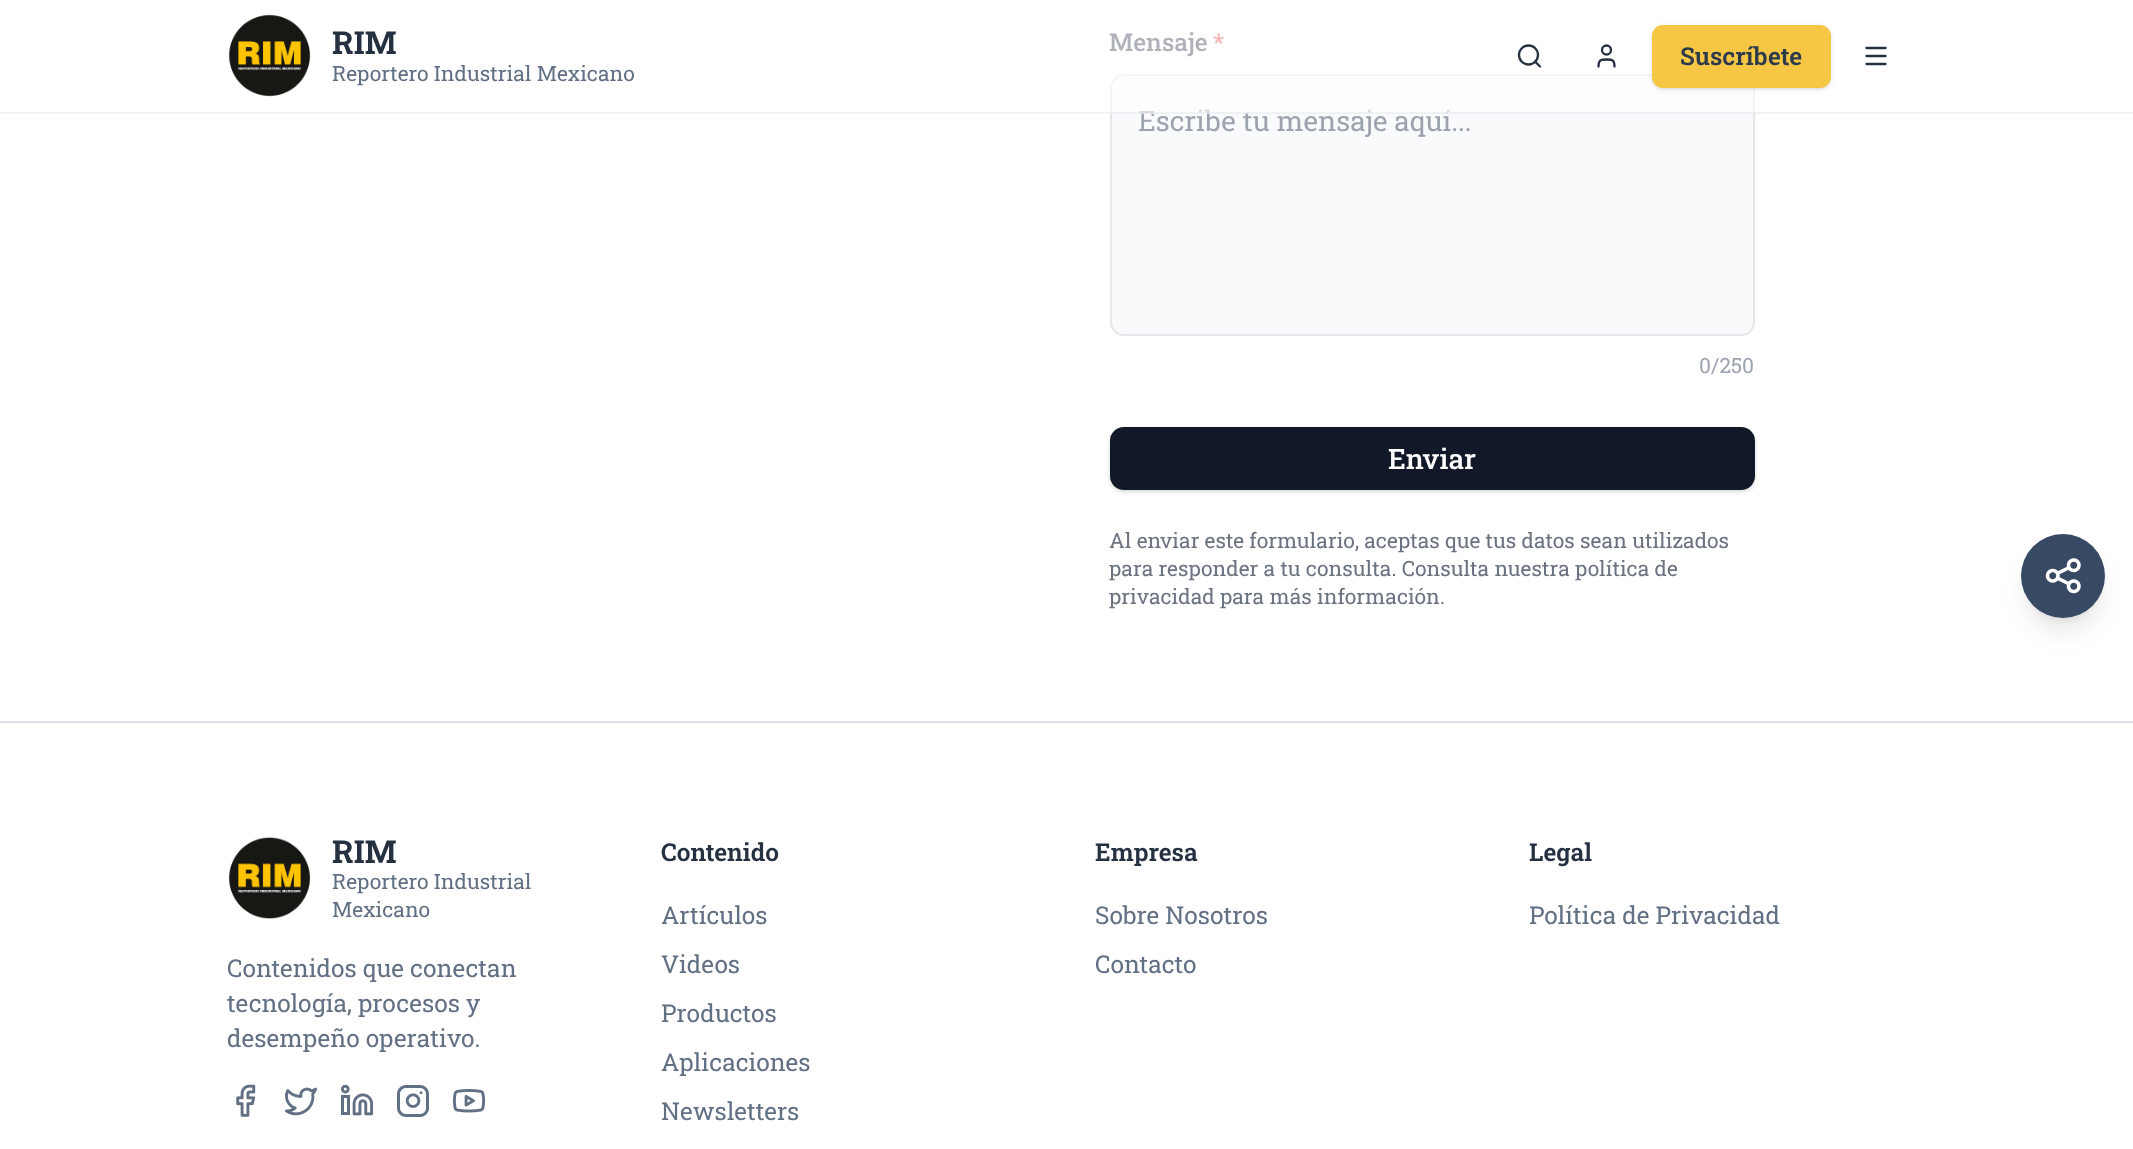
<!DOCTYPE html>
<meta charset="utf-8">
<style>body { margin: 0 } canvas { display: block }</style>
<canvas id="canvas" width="2133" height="1149"></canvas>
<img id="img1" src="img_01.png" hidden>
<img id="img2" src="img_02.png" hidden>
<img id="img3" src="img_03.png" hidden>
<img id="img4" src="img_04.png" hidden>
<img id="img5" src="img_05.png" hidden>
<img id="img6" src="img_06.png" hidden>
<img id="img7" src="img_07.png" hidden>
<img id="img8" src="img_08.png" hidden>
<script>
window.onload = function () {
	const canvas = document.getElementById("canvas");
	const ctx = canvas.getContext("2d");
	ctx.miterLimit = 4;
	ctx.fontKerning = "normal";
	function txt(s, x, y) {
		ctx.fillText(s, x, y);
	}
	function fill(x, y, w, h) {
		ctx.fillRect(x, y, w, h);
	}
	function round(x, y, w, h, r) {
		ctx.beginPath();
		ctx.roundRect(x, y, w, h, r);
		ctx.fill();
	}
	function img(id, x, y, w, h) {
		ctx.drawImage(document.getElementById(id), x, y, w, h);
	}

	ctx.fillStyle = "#FFFFFF";
	fill(0, 0, 2133, 1149);
	img("img1", 228, 14, 83, 83);
	ctx.beginPath();
	ctx.moveTo(1866.5, 48);
	ctx.lineTo(1885.5, 48);
	ctx.moveTo(1866.5, 56);
	ctx.lineTo(1885.5, 56);
	ctx.moveTo(1866.5, 64);
	ctx.lineTo(1885.5, 64);
	ctx.strokeStyle = "#253141";
	ctx.lineWidth = 2.3;
	ctx.lineCap = "round";
	ctx.lineJoin = "round";
	ctx.stroke();
	ctx.fillStyle = "#F9FAFB";
	ctx.beginPath();
	ctx.roundRect(1111, 75, 643, 260, 13);
	ctx.fill();
	ctx.strokeStyle = "#E5E7EB";
	ctx.lineWidth = 2;
	ctx.lineJoin = "miter";
	ctx.stroke();
	ctx.fillStyle = "rgba(0, 0, 0, 0.1)";
	ctx.filter = "blur(2px)";
	ctx.beginPath();
	ctx.roundRect(1111, 431, 643, 59, 12);
	ctx.fill();
	ctx.filter = "none";
	ctx.filter = "blur(2.5px)";
	ctx.beginPath();
	ctx.roundRect(1110, 429, 645, 63, 14);
	ctx.fill();
	ctx.filter = "none";
	ctx.fillStyle = "#111827";
	round(1110, 427, 645, 63, 14);
	ctx.fillStyle = "rgba(0, 0, 0, 0.1)";
	ctx.filter = "blur(5px)";
	ctx.beginPath();
	ctx.roundRect(2028, 548, 70, 70, 35);
	ctx.fill();
	ctx.filter = "none";
	ctx.filter = "blur(13px)";
	ctx.beginPath();
	ctx.roundRect(2027, 557, 73, 73, 36.5);
	ctx.fill();
	ctx.filter = "none";
	ctx.fillStyle = "#384A63";
	ctx.beginPath();
	ctx.arc(2063, 576, 42, 0, Math.PI * 2);
	ctx.fill();
	img("img2", 2045, 558, 36, 36);
	ctx.fillStyle = "#DADFE7";
	fill(0, 721, 2133, 2);
	img("img3", 228, 837, 83, 82);
	img("img4", 236, 1084, 20, 33);
	img("img5", 285, 1087, 32, 29);
	img("img6", 341, 1084, 33, 32);
	img("img7", 397, 1085, 32, 32);
	img("img8", 452, 1089, 34, 24);
	ctx.font = "bold 31.5px Roboto Slab";
	ctx.fillStyle = "#253141";
	txt("RIM", 332, 54);
	ctx.font = "21px Roboto Slab";
	ctx.fillStyle = "#627084";
	txt("Reportero Industrial Mexicano", 332, 81);
	ctx.font = "500 24.5px Roboto Slab";
	ctx.fillStyle = "#374151";
	txt("Mensaje", 1109, 51);
	ctx.fillStyle = "#EF4444";
	txt("*", 1213, 51);
	ctx.font = "28px Roboto Slab";
	ctx.fillStyle = "#9CA3AF";
	txt("Escribe tu mensaje aquí...", 1138, 131);
	ctx.fillStyle = "rgba(255, 255, 255, 0.6)";
	fill(1109, 32, 646, 82);
	ctx.beginPath();
	ctx.arc(1606.5, 50, 4.5, 0, Math.PI * 2);
	ctx.strokeStyle = "#253141";
	ctx.lineWidth = 2.3;
	ctx.stroke();
	ctx.beginPath();
	ctx.moveTo(1614.5, 66.5);
	ctx.bezierCurveTo(1614.5, 60, 1612.5, 59.5, 1606.5, 59.5);
	ctx.bezierCurveTo(1600.5, 59.5, 1598.5, 60, 1598.5, 66.5);
	ctx.lineJoin = "round";
	ctx.stroke();
	ctx.beginPath();
	ctx.moveTo(1540, 66.5);
	ctx.lineTo(1535, 61.5);
	ctx.stroke();
	ctx.beginPath();
	ctx.arc(1528.5, 55, 9.5, 0, Math.PI * 2);
	ctx.stroke();
	ctx.fillStyle = "rgba(0, 0, 0, 0.1)";
	ctx.filter = "blur(2.5px)";
	ctx.beginPath();
	ctx.roundRect(1652, 26, 179, 63, 11);
	ctx.fill();
	ctx.filter = "none";
	ctx.filter = "blur(2px)";
	ctx.beginPath();
	ctx.roundRect(1654, 28, 175, 60, 9);
	ctx.fill();
	ctx.filter = "none";
	ctx.fillStyle = "#F6C744";
	round(1652, 25, 179, 63, 11);
	ctx.font = "600 24.5px Roboto Slab";
	ctx.fillStyle = "#2D3A4B";
	txt("Suscríbete", 1680, 65);
	ctx.fillStyle = "rgba(218, 223, 231, 0.4)";
	fill(0, 112, 2133, 2);
	ctx.font = "21px Roboto Slab";
	ctx.fillStyle = "#9CA3AF";
	txt("0/250", 1699, 373);
	ctx.font = "500 28px Roboto Slab";
	ctx.fillStyle = "#FFFFFF";
	txt("Enviar", 1388, 469);
	ctx.font = "21px Roboto Slab";
	ctx.fillStyle = "#6B7280";
	txt("Al enviar este formulario, aceptas que tus datos sean utilizados", 1109, 548);
	txt("para responder a tu consulta. Consulta nuestra política de", 1109, 576);
	txt("privacidad para más información.", 1109, 604);
	ctx.font = "bold 31.5px Roboto Slab";
	ctx.fillStyle = "#253141";
	txt("RIM", 332, 863);
	ctx.font = "21px Roboto Slab";
	ctx.fillStyle = "#627084";
	txt("Reportero Industrial", 332, 889);
	txt("Mexicano", 332, 917);
	ctx.font = "24.5px Roboto Slab";
	txt("Contenidos que conectan", 227, 977);
	txt("tecnología, procesos y", 227, 1012);
	txt("desempeño operativo.", 227, 1047);
	ctx.font = "600 24.5px Roboto Slab";
	ctx.fillStyle = "#253141";
	txt("Contenido", 661, 861);
	ctx.font = "24.5px Roboto Slab";
	ctx.fillStyle = "#627084";
	txt("Artículos", 661, 924);
	txt("Videos", 661, 973);
	txt("Productos", 661, 1022);
	txt("Aplicaciones", 661, 1071);
	txt("Newsletters", 661, 1120);
	ctx.font = "600 24.5px Roboto Slab";
	ctx.fillStyle = "#253141";
	txt("Empresa", 1095, 861);
	ctx.font = "24.5px Roboto Slab";
	ctx.fillStyle = "#627084";
	txt("Sobre Nosotros", 1095, 924);
	txt("Contacto", 1095, 973);
	ctx.font = "600 24.5px Roboto Slab";
	ctx.fillStyle = "#253141";
	txt("Legal", 1529, 861);
	ctx.font = "24.5px Roboto Slab";
	ctx.fillStyle = "#627084";
	txt("Política de Privacidad", 1529, 924);
};
</script>
